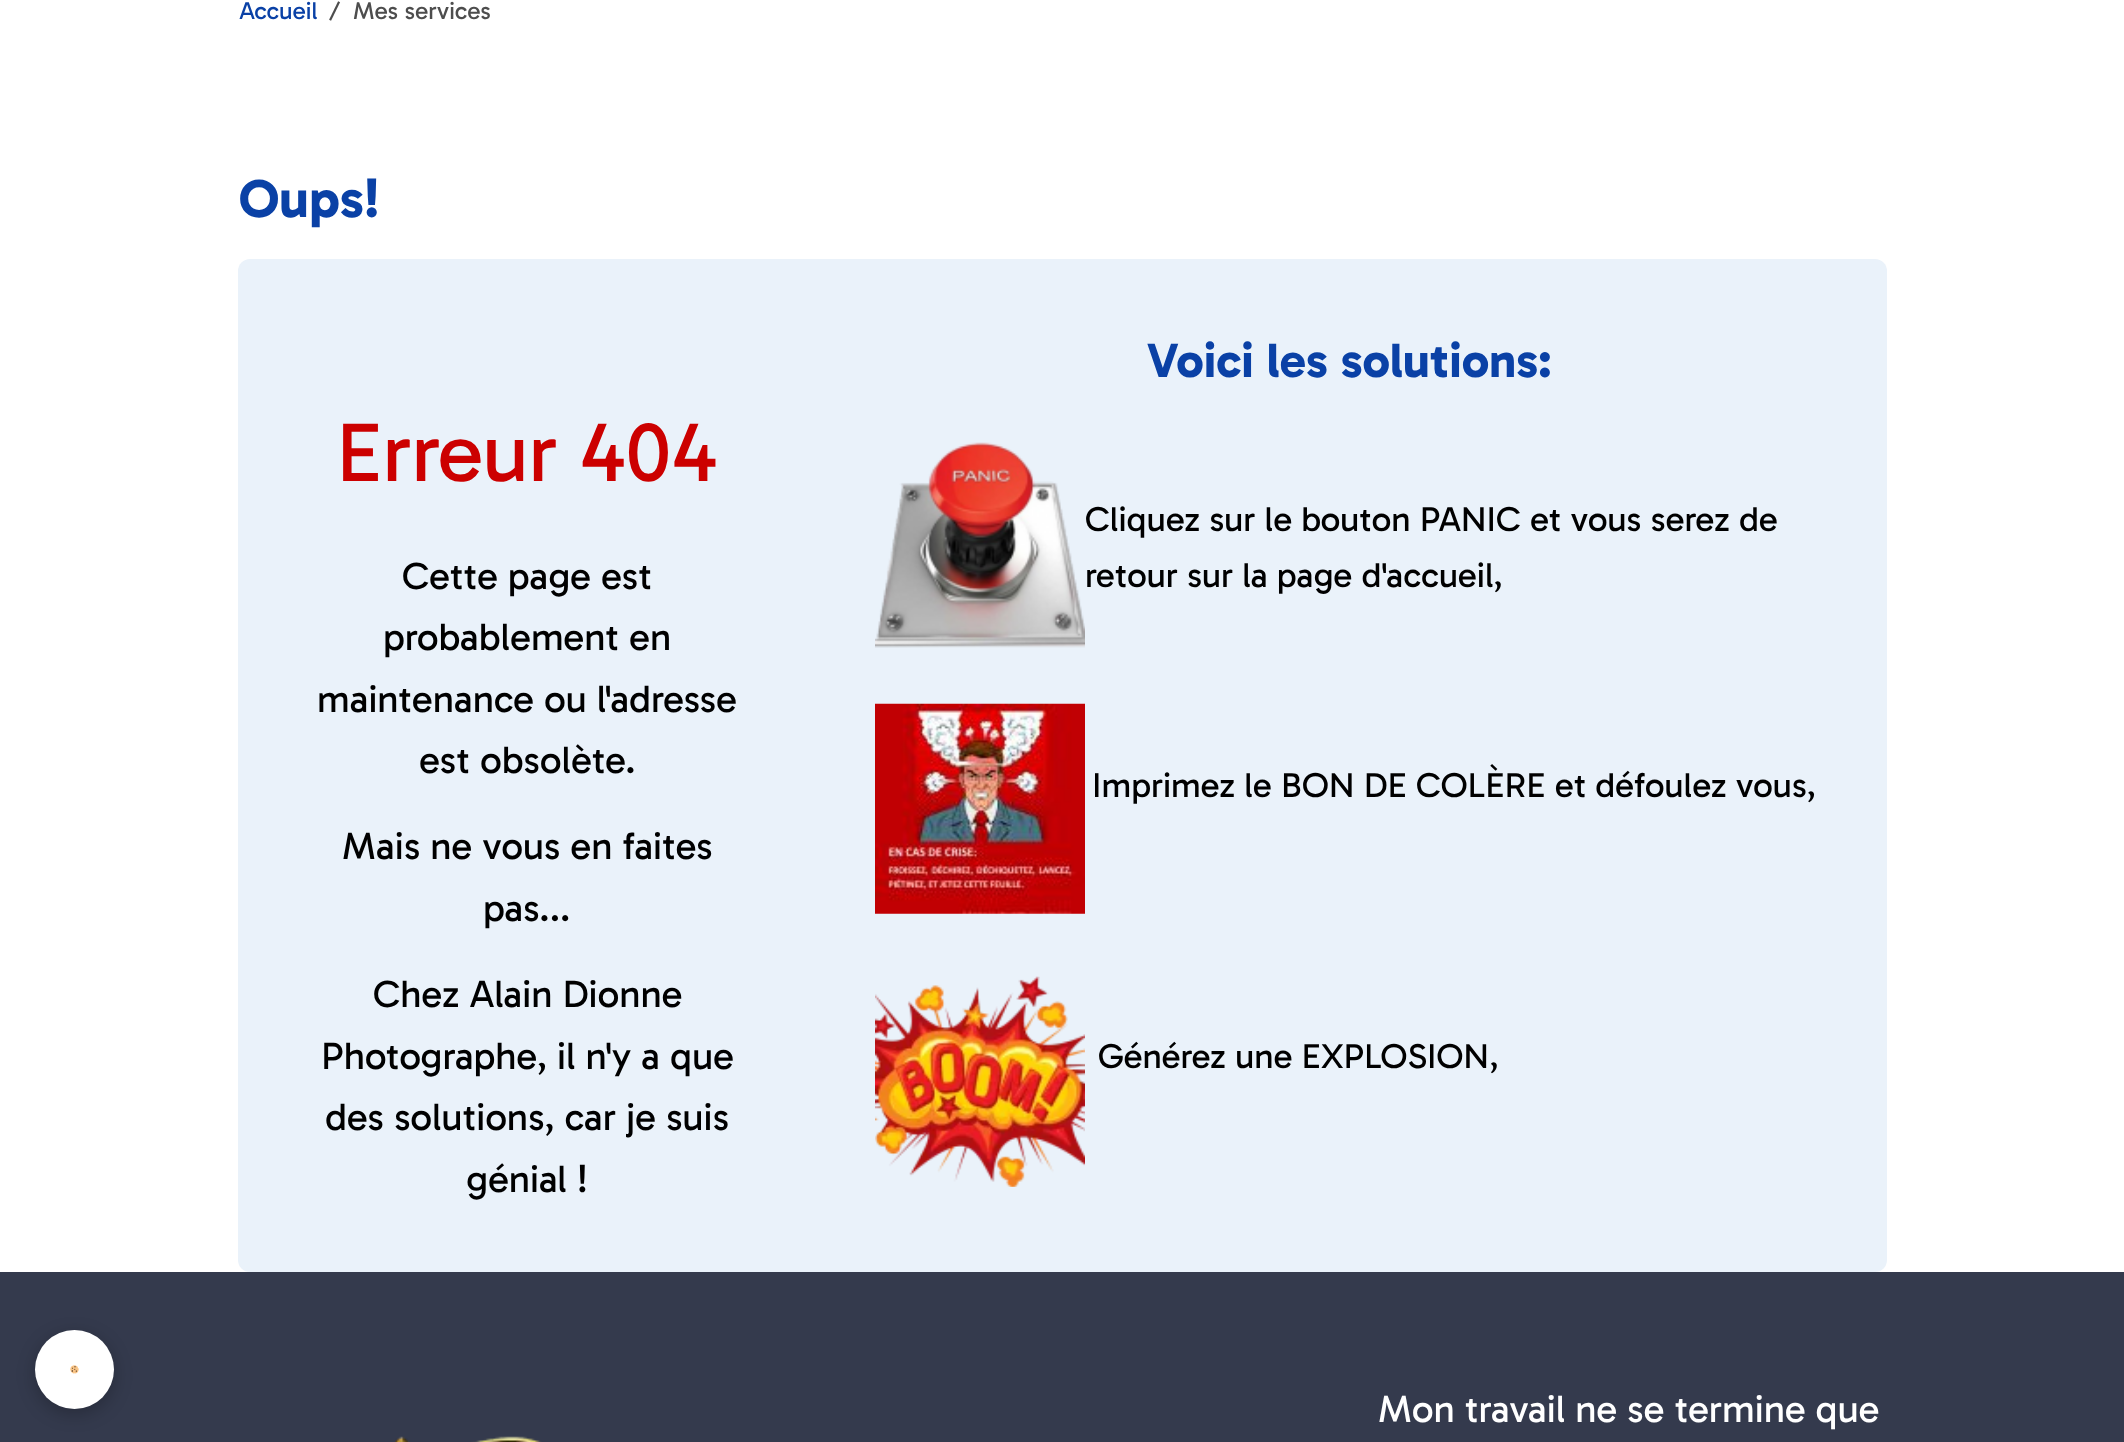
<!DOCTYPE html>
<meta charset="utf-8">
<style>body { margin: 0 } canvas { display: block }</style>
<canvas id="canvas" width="2124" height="1442"></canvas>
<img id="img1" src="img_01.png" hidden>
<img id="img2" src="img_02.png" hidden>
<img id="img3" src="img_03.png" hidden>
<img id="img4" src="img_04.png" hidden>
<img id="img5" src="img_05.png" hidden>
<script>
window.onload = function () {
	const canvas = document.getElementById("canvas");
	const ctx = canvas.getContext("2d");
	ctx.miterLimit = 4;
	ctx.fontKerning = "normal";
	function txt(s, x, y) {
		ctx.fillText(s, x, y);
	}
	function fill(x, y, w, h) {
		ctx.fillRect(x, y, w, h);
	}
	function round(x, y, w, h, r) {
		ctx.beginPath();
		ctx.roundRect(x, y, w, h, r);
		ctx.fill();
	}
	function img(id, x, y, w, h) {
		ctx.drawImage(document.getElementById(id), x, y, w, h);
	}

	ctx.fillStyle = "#FFFFFF";
	fill(0, 0, 2124, 1442);
	ctx.fillStyle = "#EAF2FA";
	round(238, 259, 1649, 1013, 12);
	img("img1", 875, 442, 210, 206);
	img("img2", 875, 703, 210, 211);
	img("img3", 875, 976, 210, 211);
	ctx.fillStyle = "#343A4D";
	fill(0, 1272, 2124, 170);
	ctx.fillStyle = "rgba(0, 0, 0, 0.24)";
	ctx.filter = "blur(9px)";
	ctx.beginPath();
	ctx.roundRect(35, 1335, 79, 79, 39.5);
	ctx.fill();
	ctx.filter = "none";
	ctx.fillStyle = "#FFFFFF";
	ctx.beginPath();
	ctx.arc(74.5, 1369.5, 39.5, 0, Math.PI * 2);
	ctx.fill();
	img("img4", 70, 1365, 9, 9);
	img("img5", 395, 1436, 147, 6);
	ctx.font = "24.5px Gabarito";
	ctx.fillStyle = "#0A41A6";
	txt("Accueil", 239, 19);
	ctx.fillStyle = "#4D4D4D";
	txt("/", 329, 19);
	txt("Mes services", 353, 19);
	ctx.font = "bold 54px Gabarito";
	ctx.fillStyle = "#0A41A6";
	txt("Oups!", 239, 217);
	ctx.font = "84px Gabarito";
	ctx.fillStyle = "#CC0000";
	txt("Erreur 404", 336, 481);
	ctx.font = "38.5px Gabarito";
	ctx.fillStyle = "#000000";
	txt("Cette page est", 402, 589);
	txt("probablement en", 383, 650);
	txt("maintenance ou l'adresse", 317, 712);
	txt("est obsolète.", 419, 773);
	txt("Mais ne vous en faites", 342, 859);
	txt("pas...", 483, 921);
	txt("Chez Alain Dionne", 373, 1007);
	txt("Photographe, il n'y a que", 321, 1069);
	txt("des solutions, car je suis", 325, 1130);
	txt("génial !", 466, 1192);
	ctx.font = "bold 49px Gabarito";
	ctx.fillStyle = "#0A41A6";
	txt("Voici les solutions:", 1147, 377);
	ctx.font = "35px Gabarito";
	ctx.fillStyle = "#000000";
	txt("Cliquez sur le bouton PANIC et vous serez de", 1085, 531);
	txt("retour sur la page d'accueil,", 1085, 587);
	txt("Imprimez le BON DE COLÈRE et défoulez vous,", 1092, 797);
	txt("Générez une EXPLOSION,", 1098, 1068);
	ctx.font = "38.5px Gabarito";
	ctx.fillStyle = "#FFFFFF";
	txt("Mon travail ne se termine que", 1378, 1422);
};
</script>
